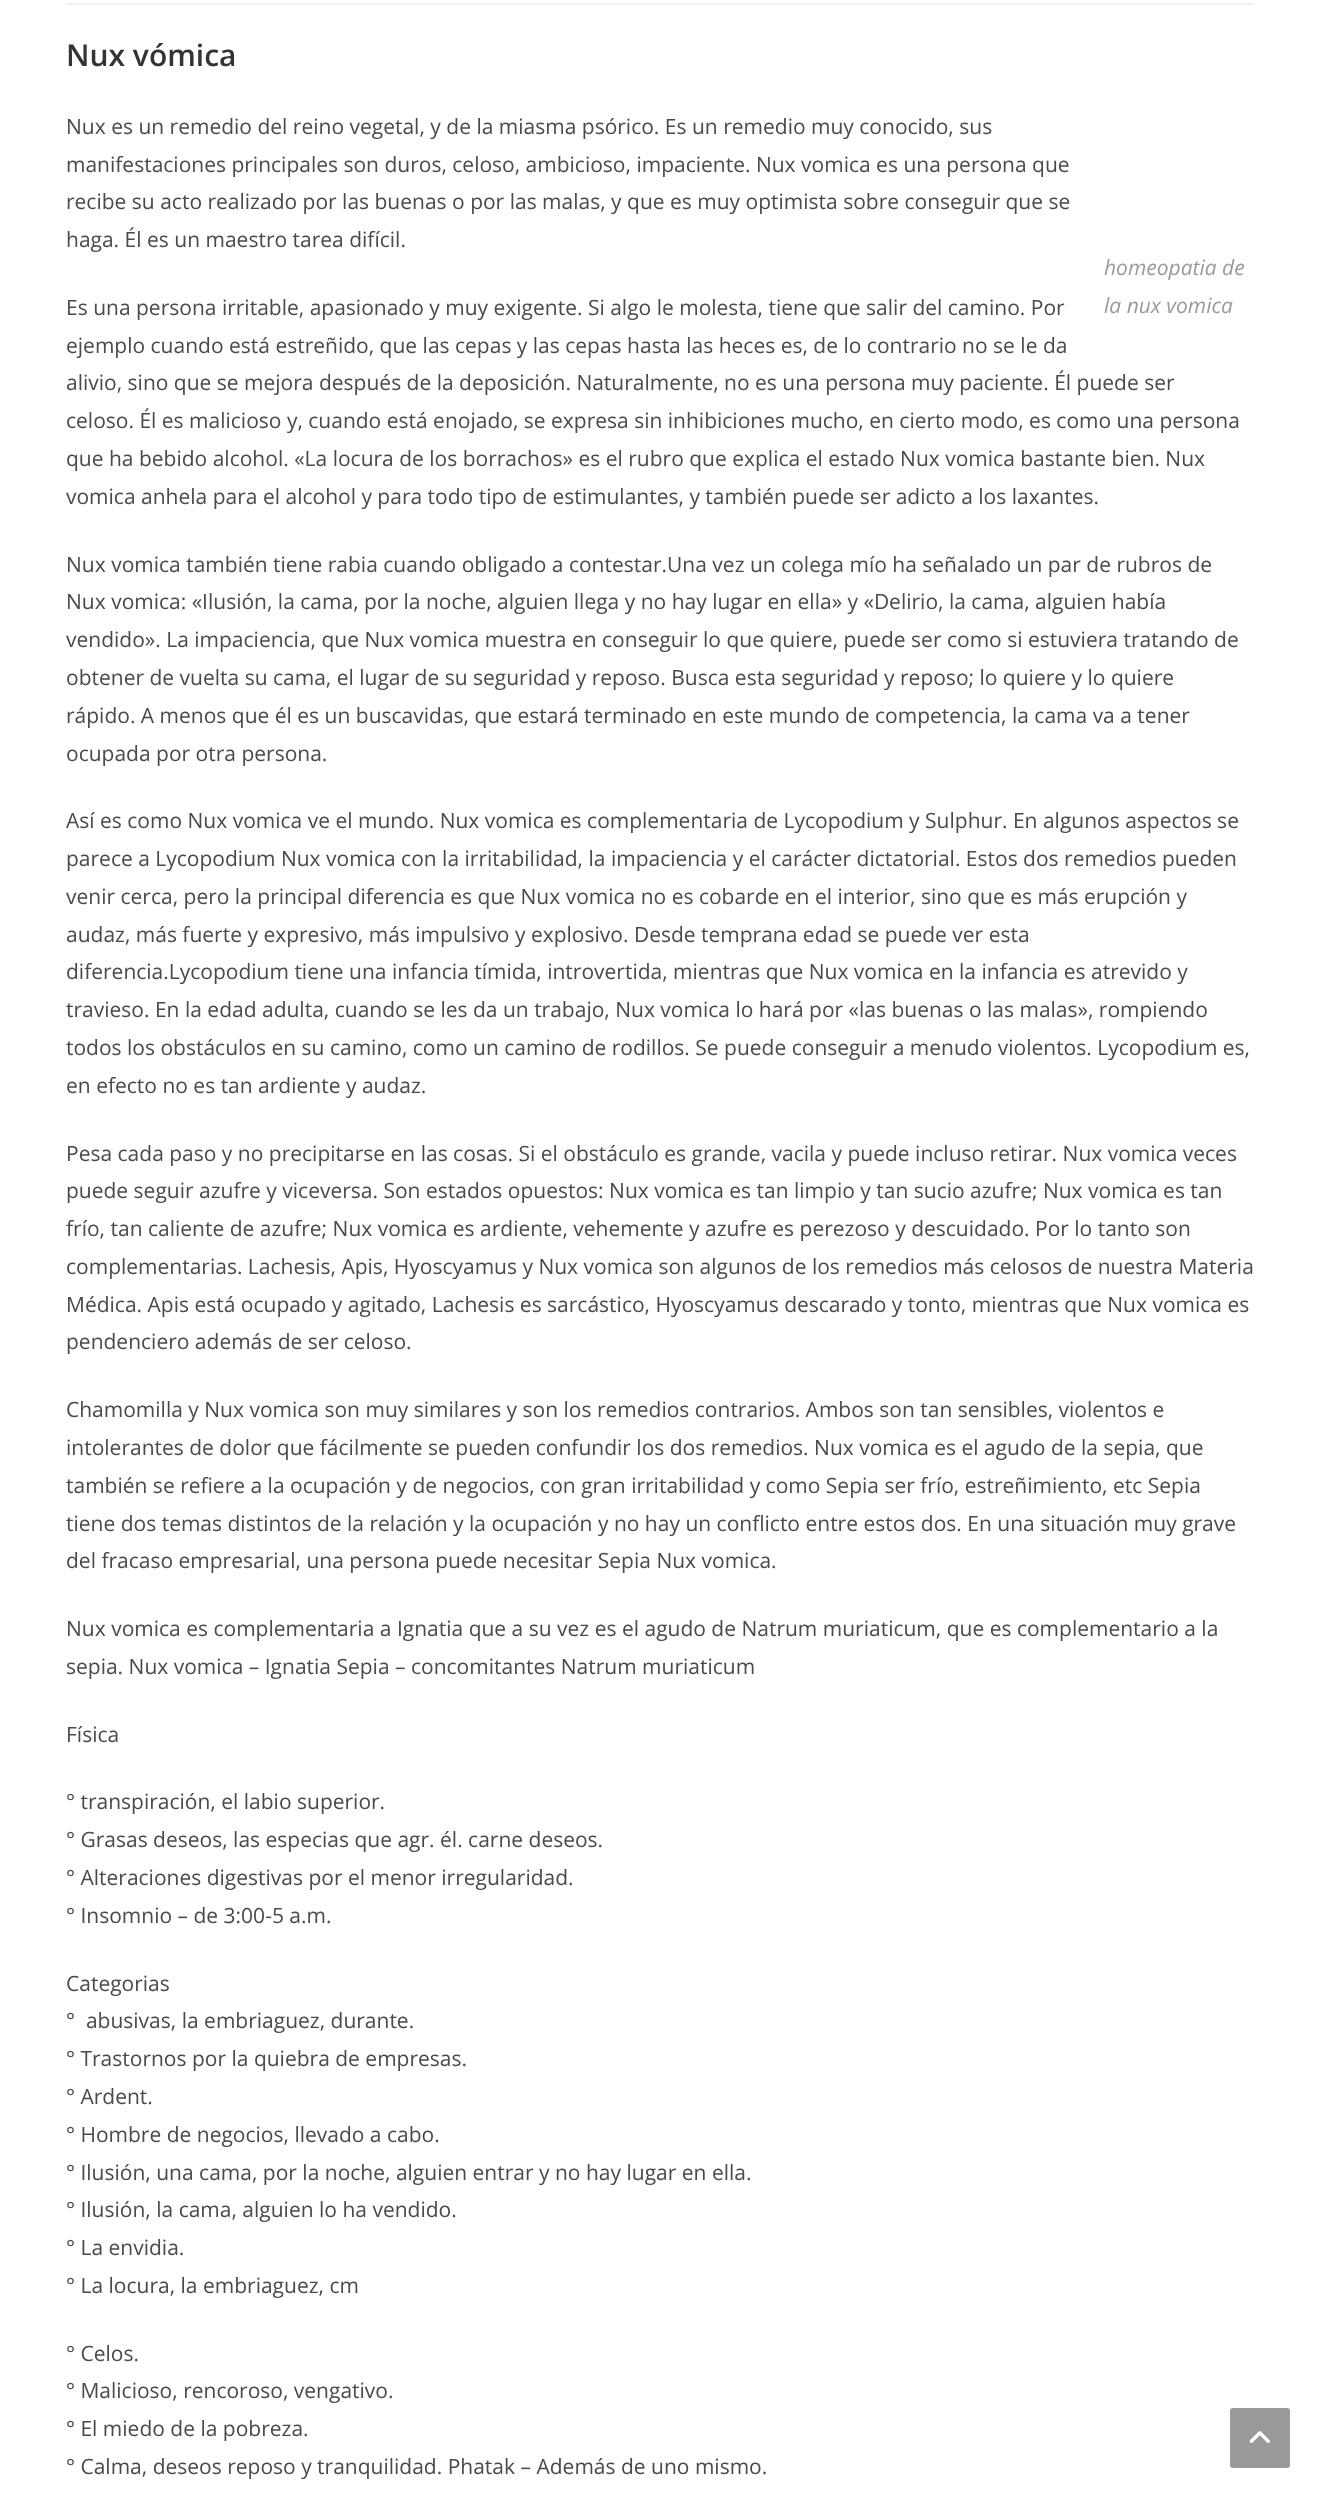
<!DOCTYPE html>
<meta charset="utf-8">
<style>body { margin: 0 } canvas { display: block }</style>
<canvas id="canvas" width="1320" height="2497"></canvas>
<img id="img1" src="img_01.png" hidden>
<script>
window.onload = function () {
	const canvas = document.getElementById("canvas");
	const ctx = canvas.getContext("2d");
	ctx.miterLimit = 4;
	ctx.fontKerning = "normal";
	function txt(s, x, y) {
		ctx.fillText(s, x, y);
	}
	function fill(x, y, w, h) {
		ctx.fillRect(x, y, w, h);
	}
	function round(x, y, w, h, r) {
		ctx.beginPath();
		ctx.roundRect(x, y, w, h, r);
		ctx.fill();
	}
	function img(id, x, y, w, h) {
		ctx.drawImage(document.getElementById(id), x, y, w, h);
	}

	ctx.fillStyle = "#FFFFFF";
	fill(0, 0, 1320, 2497);
	ctx.fillStyle = "#F1F1F1";
	fill(66, 3, 1188, 2);
	ctx.fillStyle = "#999999";
	round(1230, 2408, 60, 60, 3);
	img("img1", 1249, 2431, 21, 12);
	ctx.font = "600 30px Open Sans";
	ctx.fillStyle = "#333333";
	txt("Nux vómica", 66, 66);
	ctx.font = "21px Open Sans";
	ctx.fillStyle = "#4A4A4A";
	txt("Nux es un remedio del reino vegetal, y de la miasma psórico. Es un remedio muy conocido, sus", 66, 134);
	txt("manifestaciones principales son duros, celoso, ambicioso, impaciente. Nux vomica es una persona que", 66, 172);
	txt("recibe su acto realizado por las buenas o por las malas, y que es muy optimista sobre conseguir que se", 66, 209);
	txt("haga. Él es un maestro tarea difícil.", 66, 247);
	ctx.font = "italic 21px Open Sans";
	ctx.fillStyle = "#999999";
	txt("homeopatia de", 1104, 275);
	txt("la nux vomica", 1104, 313);
	ctx.font = "21px Open Sans";
	ctx.fillStyle = "#4A4A4A";
	txt("Es una persona irritable, apasionado y muy exigente. Si algo le molesta, tiene que salir del camino. Por", 66, 315);
	txt("ejemplo cuando está estreñido, que las cepas y las cepas hasta las heces es, de lo contrario no se le da", 66, 353);
	txt("alivio, sino que se mejora después de la deposición. Naturalmente, no es una persona muy paciente. Él puede ser", 66, 390);
	txt("celoso. Él es malicioso y, cuando está enojado, se expresa sin inhibiciones mucho, en cierto modo, es como una persona", 66, 428);
	txt("que ha bebido alcohol. «La locura de los borrachos» es el rubro que explica el estado Nux vomica bastante bien. Nux", 66, 466);
	txt("vomica anhela para el alcohol y para todo tipo de estimulantes, y también puede ser adicto a los laxantes.", 66, 504);
	txt("Nux vomica también tiene rabia cuando obligado a contestar.Una vez un colega mío ha señalado un par de rubros de", 66, 572);
	txt("Nux vomica: «Ilusión, la cama, por la noche, alguien llega y no hay lugar en ella» y «Delirio, la cama, alguien había", 66, 609);
	txt("vendido». La impaciencia, que Nux vomica muestra en conseguir lo que quiere, puede ser como si estuviera tratando de", 66, 647);
	txt("obtener de vuelta su cama, el lugar de su seguridad y reposo. Busca esta seguridad y reposo; lo quiere y lo quiere", 66, 685);
	txt("rápido. A menos que él es un buscavidas, que estará terminado en este mundo de competencia, la cama va a tener", 66, 723);
	txt("ocupada por otra persona.", 66, 761);
	txt("Así es como Nux vomica ve el mundo. Nux vomica es complementaria de Lycopodium y Sulphur. En algunos aspectos se", 66, 828);
	txt("parece a Lycopodium Nux vomica con la irritabilidad, la impaciencia y el carácter dictatorial. Estos dos remedios pueden", 66, 866);
	txt("venir cerca, pero la principal diferencia es que Nux vomica no es cobarde en el interior, sino que es más erupción y", 66, 904);
	txt("audaz, más fuerte y expresivo, más impulsivo y explosivo. Desde temprana edad se puede ver esta", 66, 942);
	txt("diferencia.Lycopodium tiene una infancia tímida, introvertida, mientras que Nux vomica en la infancia es atrevido y", 66, 979);
	txt("travieso. En la edad adulta, cuando se les da un trabajo, Nux vomica lo hará por «las buenas o las malas», rompiendo", 66, 1017);
	txt("todos los obstáculos en su camino, como un camino de rodillos. Se puede conseguir a menudo violentos. Lycopodium es,", 66, 1055);
	txt("en efecto no es tan ardiente y audaz.", 66, 1093);
	txt("Pesa cada paso y no precipitarse en las cosas. Si el obstáculo es grande, vacila y puede incluso retirar. Nux vomica veces", 66, 1161);
	txt("puede seguir azufre y viceversa. Son estados opuestos: Nux vomica es tan limpio y tan sucio azufre; Nux vomica es tan", 66, 1198);
	txt("frío, tan caliente de azufre; Nux vomica es ardiente, vehemente y azufre es perezoso y descuidado. Por lo tanto son", 66, 1236);
	txt("complementarias. Lachesis, Apis, Hyoscyamus y Nux vomica son algunos de los remedios más celosos de nuestra Materia", 66, 1274);
	txt("Médica. Apis está ocupado y agitado, Lachesis es sarcástico, Hyoscyamus descarado y tonto, mientras que Nux vomica es", 66, 1312);
	txt("pendenciero además de ser celoso.", 66, 1349);
	txt("Chamomilla y Nux vomica son muy similares y son los remedios contrarios. Ambos son tan sensibles, violentos e", 66, 1417);
	txt("intolerantes de dolor que fácilmente se pueden confundir los dos remedios. Nux vomica es el agudo de la sepia, que", 66, 1455);
	txt("también se refiere a la ocupación y de negocios, con gran irritabilidad y como Sepia ser frío, estreñimiento, etc Sepia", 66, 1493);
	txt("tiene dos temas distintos de la relación y la ocupación y no hay un conflicto entre estos dos. En una situación muy grave", 66, 1531);
	txt("del fracaso empresarial, una persona puede necesitar Sepia Nux vomica.", 66, 1568);
	txt("Nux vomica es complementaria a Ignatia que a su vez es el agudo de Natrum muriaticum, que es complementario a la", 66, 1636);
	txt("sepia. Nux vomica – Ignatia Sepia – concomitantes Natrum muriaticum", 66, 1674);
	txt("Física", 66, 1742);
	txt("° transpiración, el labio superior.", 66, 1809);
	txt("° Grasas deseos, las especias que agr. él. carne deseos.", 66, 1847);
	txt("° Alteraciones digestivas por el menor irregularidad.", 66, 1885);
	txt("° Insomnio – de 3:00-5 a.m.", 66, 1923);
	txt("Categorias", 66, 1991);
	txt("°  abusivas, la embriaguez, durante.", 66, 2028);
	txt("° Trastornos por la quiebra de empresas.", 66, 2066);
	txt("° Ardent.", 66, 2104);
	txt("° Hombre de negocios, llevado a cabo.", 66, 2142);
	txt("° Ilusión, una cama, por la noche, alguien entrar y no hay lugar en ella.", 66, 2180);
	txt("° Ilusión, la cama, alguien lo ha vendido.", 66, 2217);
	txt("° La envidia.", 66, 2255);
	txt("° La locura, la embriaguez, cm", 66, 2293);
	txt("° Celos.", 66, 2361);
	txt("° Malicioso, rencoroso, vengativo.", 66, 2398);
	txt("° El miedo de la pobreza.", 66, 2436);
	txt("° Calma, deseos reposo y tranquilidad. Phatak – Además de uno mismo.", 66, 2474);
};
</script>
